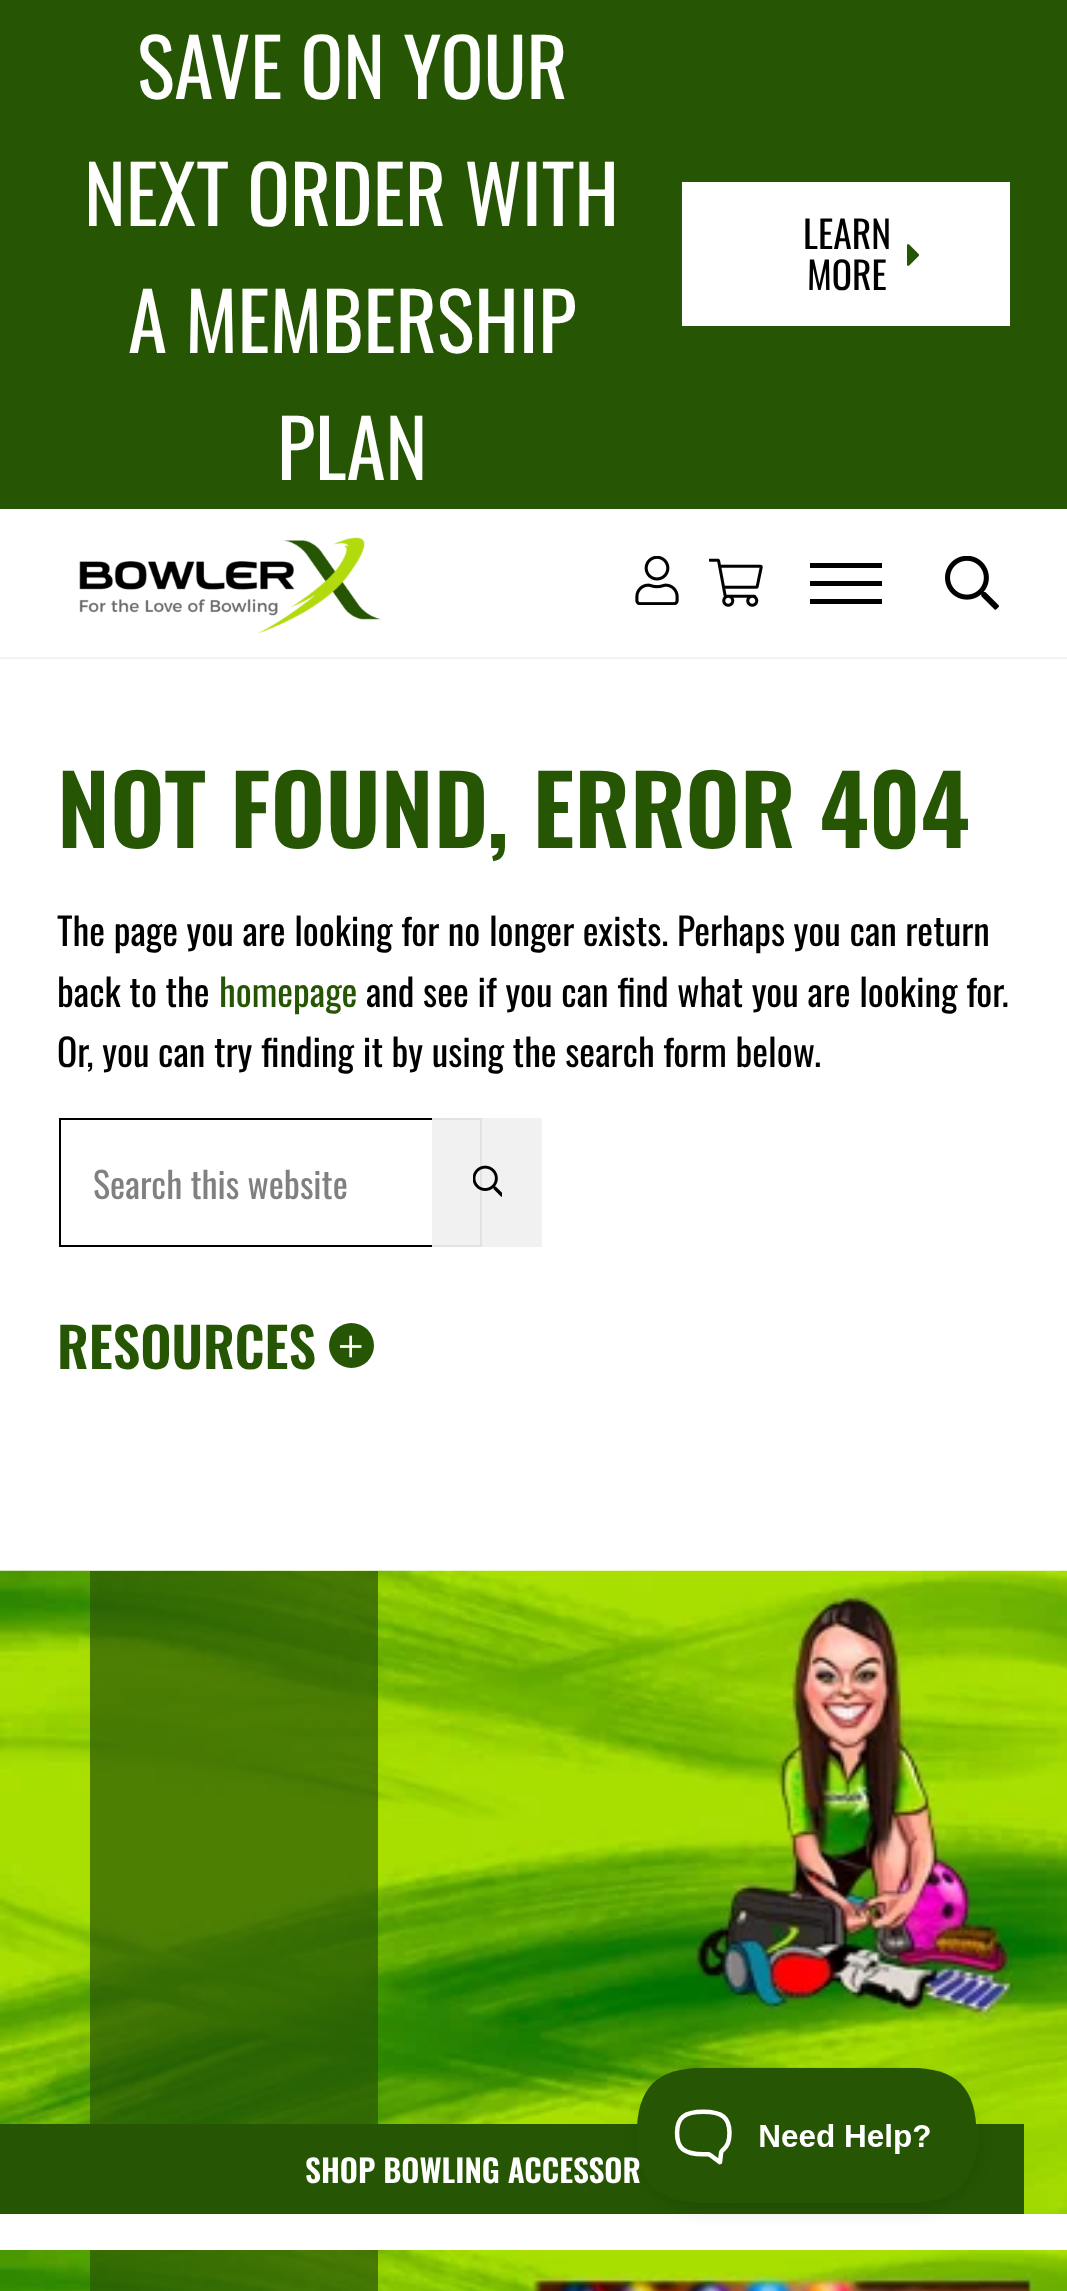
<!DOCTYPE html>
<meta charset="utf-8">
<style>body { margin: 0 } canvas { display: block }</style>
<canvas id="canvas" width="1067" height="2291"></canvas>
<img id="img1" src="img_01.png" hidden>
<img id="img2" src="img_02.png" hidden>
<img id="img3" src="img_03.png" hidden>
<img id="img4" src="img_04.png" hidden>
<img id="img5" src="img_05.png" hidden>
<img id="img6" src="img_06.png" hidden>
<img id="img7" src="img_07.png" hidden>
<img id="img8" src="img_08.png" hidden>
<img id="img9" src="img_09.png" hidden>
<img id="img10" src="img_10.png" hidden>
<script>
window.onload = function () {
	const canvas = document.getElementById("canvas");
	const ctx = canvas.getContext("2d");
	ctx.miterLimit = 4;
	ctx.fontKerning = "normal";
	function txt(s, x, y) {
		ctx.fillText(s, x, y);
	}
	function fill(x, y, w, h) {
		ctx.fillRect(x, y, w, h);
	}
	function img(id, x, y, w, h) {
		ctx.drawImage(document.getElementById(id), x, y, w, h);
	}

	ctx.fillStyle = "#FFFFFF";
	fill(0, 0, 1067, 2291);
	ctx.fillStyle = "#265604";
	fill(0, 0, 1067, 509);
	ctx.fillStyle = "#FFFFFF";
	fill(682, 182, 328, 144);
	img("img1", 907, 244, 12, 22);
	ctx.fillStyle = "#F3F3F4";
	fill(0, 657, 1067, 2);
	img("img2", 79, 537, 302, 97);
	img("img3", 635, 556, 44, 49);
	img("img4", 709, 558, 54, 49);
	ctx.fillStyle = "#000000";
	fill(810, 581, 72, 5);
	fill(810, 563, 72, 5);
	fill(810, 599, 72, 5);
	img("img5", 945, 556, 54, 54);
	ctx.strokeStyle = "#000000";
	ctx.lineWidth = 2;
	ctx.strokeRect(60, 1119, 421, 127);
	ctx.fillStyle = "rgba(240, 240, 240, 0.94)";
	fill(432, 1118, 110, 129);
	img("img6", 473, 1165, 29, 32);
	ctx.fillStyle = "#265604";
	ctx.beginPath();
	ctx.arc(351.5, 1345.5, 22.5, 0, Math.PI * 2);
	ctx.fill();
	img("img7", 340, 1335, 22, 23);
	img("img8", 0, 1570, 1067, 644);
	ctx.fillStyle = "rgba(38, 86, 4, 0.7)";
	fill(90, 1571, 288, 553);
	ctx.fillStyle = "#265604";
	fill(0, 2124, 1024, 90);
	img("img9", 0, 2250, 1067, 41);
	ctx.fillStyle = "rgba(38, 86, 4, 0.7)";
	fill(90, 2250, 288, 41);
	ctx.save();
	ctx.beginPath();
	ctx.moveTo(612, 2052);
	ctx.lineTo(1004, 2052);
	ctx.lineTo(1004, 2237);
	ctx.lineTo(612, 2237);
	ctx.closePath();
	ctx.moveTo(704.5, 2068);
	ctx.lineTo(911.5, 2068);
	ctx.bezierCurveTo(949, 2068, 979, 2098, 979, 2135.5);
	ctx.bezierCurveTo(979, 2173, 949, 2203, 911.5, 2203);
	ctx.lineTo(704.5, 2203);
	ctx.bezierCurveTo(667, 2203, 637, 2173, 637, 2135.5);
	ctx.bezierCurveTo(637, 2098, 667, 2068, 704.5, 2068);
	ctx.closePath();
	ctx.clip("evenodd");
	ctx.fillStyle = "rgba(0, 0, 0, 0.1)";
	ctx.filter = "blur(8px)";
	ctx.beginPath();
	ctx.roundRect(637, 2077, 342, 135, 67.5);
	ctx.fill();
	ctx.filter = "none";
	ctx.restore();
	ctx.font = "79.25px Oswald";
	ctx.fillStyle = "#FFFFFF";
	txt("SAVE ON YOUR", 137, 99);
	txt("NEXT ORDER WITH", 84, 226);
	txt("A MEMBERSHIP", 128, 353);
	txt("PLAN", 277, 480);
	ctx.font = "37.6px Oswald";
	ctx.fillStyle = "#000000";
	txt("LEARN", 803, 249);
	txt("MORE", 807, 290);
	ctx.font = "600 95.5px Oswald";
	ctx.fillStyle = "#265604";
	txt("NOT FOUND, ERROR 404", 57, 848);
	ctx.font = "37.6px Oswald";
	ctx.fillStyle = "#000000";
	txt("The page you are looking for no longer exists. Perhaps you can return", 57, 946);
	txt("back to the", 57, 1007);
	ctx.fillStyle = "#265604";
	txt("homepage", 219, 1007);
	ctx.fillStyle = "#000000";
	txt("and see if you can find what you are looking for.", 366, 1007);
	txt("Or, you can try finding it by using the search form below.", 57, 1067);
	ctx.font = "36px Oswald";
	ctx.fillStyle = "#808080";
	txt("Search this website", 93, 1199);
	ctx.font = "600 54.5px Oswald";
	ctx.fillStyle = "#265604";
	txt("RESOURCES", 57, 1369);
	ctx.font = "600 31.5px Oswald";
	ctx.fillStyle = "#FFFFFF";
	txt("SHOP BOWLING ACCESSOR", 305, 2183);
	img("img10", 637, 2067, 339, 135);
};
</script>
